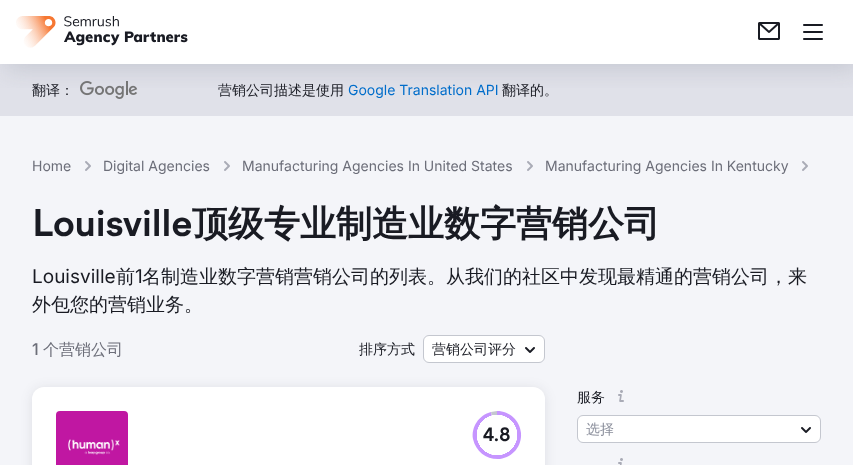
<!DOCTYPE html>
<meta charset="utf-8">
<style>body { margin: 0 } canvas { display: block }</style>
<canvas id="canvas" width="853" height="465"></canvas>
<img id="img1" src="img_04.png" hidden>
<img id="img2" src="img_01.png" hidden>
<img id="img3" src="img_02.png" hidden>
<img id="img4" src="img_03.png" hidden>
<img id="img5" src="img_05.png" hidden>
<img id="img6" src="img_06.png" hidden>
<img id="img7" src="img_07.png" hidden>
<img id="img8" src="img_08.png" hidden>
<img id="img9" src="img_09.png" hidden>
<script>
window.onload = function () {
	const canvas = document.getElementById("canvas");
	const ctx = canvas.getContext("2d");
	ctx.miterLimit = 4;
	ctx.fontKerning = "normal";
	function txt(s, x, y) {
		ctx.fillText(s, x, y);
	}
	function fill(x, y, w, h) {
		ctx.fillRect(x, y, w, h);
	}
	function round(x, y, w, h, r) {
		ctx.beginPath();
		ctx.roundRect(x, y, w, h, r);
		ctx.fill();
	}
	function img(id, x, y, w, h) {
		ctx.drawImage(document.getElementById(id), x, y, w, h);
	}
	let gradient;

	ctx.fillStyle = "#FFFFFF";
	fill(0, 0, 853, 465);
	ctx.fillStyle = "#E0E1E9";
	fill(0, 64, 853, 52);
	img("img1", 80, 81, 58, 18);
	ctx.save();
	ctx.beginPath();
	ctx.rect(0, 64, 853, 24);
	ctx.clip();
	ctx.fillStyle = "rgba(137, 141, 154, 0.3)";
	ctx.filter = "blur(12.5px)";
	ctx.beginPath();
	ctx.rect(5, 5, 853, 64);
	ctx.fill();
	ctx.filter = "none";
	ctx.restore();
	img("img2", 16, 16, 172, 32);
	img("img3", 758, 22, 22, 18);
	img("img4", 803, 24, 20, 16);
	ctx.fillStyle = "#F4F5F9";
	fill(0, 116, 853, 349);
	img("img5", 85, 161, 6, 10);
	img("img5", 224, 161, 6, 10);
	img("img5", 527, 161, 6, 10);
	img("img5", 802, 161, 6, 10);
	ctx.fillStyle = "#FFFFFF";
	ctx.beginPath();
	ctx.roundRect(423.5, 335.5, 121, 27, 5.5);
	ctx.fill();
	ctx.strokeStyle = "#C4C7CF";
	ctx.stroke();
	img("img6", 525, 347, 10, 6);
	ctx.fillStyle = "rgba(25, 27, 35, 0.1)";
	ctx.filter = "blur(6px)";
	ctx.beginPath();
	ctx.roundRect(32, 388, 513, 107, 12);
	ctx.fill();
	ctx.filter = "none";
	ctx.fillStyle = "#FFFFFF";
	round(32, 387, 513, 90, 12);
	img("img7", 56, 411, 72, 54);
	ctx.fillStyle = "#C695FF";
	ctx.beginPath();
	ctx.moveTo(497, 435);
	ctx.lineTo(497, 411);
	ctx.bezierCurveTo(510, 411, 520, 421, 521, 433);
	ctx.bezierCurveTo(522, 446, 513, 457, 500, 459);
	ctx.bezierCurveTo(487, 460, 476, 452, 473, 439);
	ctx.bezierCurveTo(471, 427, 479, 415, 491, 412);
	ctx.closePath();
	ctx.fill();
	ctx.fillStyle = "#C4C7CF";
	ctx.beginPath();
	ctx.moveTo(497, 435);
	ctx.lineTo(491, 412);
	ctx.lineTo(497, 411);
	ctx.closePath();
	ctx.fill();
	gradient = ctx.createRadialGradient(497, 435, 0, 497, 435, 24);
	gradient.addColorStop(0.84, "#FFFFFF");
	gradient.addColorStop(0.85, "rgba(255, 255, 255, 0)");
	gradient.addColorStop(1, "rgba(0, 0, 0, 0)");
	ctx.fillStyle = gradient;
	fill(477, 415, 40, 40);
	img("img8", 618, 390, 6, 12);
	ctx.fillStyle = "#FFFFFF";
	ctx.beginPath();
	ctx.roundRect(577.5, 415.5, 243, 27, 5.5);
	ctx.fill();
	ctx.stroke();
	img("img6", 801, 427, 10, 6);
	img("img9", 618, 458, 5, 7);
	ctx.font = "500 14px WenQuanYi Zen Hei";
	ctx.fillStyle = "#191B23";
	txt("翻译：", 32, 95);
	txt("营销公司描述是使用", 218, 95);
	ctx.font = "14px Inter";
	ctx.fillStyle = "#006DCA";
	txt("Google Translation API", 348, 95);
	ctx.font = "500 14px WenQuanYi Zen Hei";
	ctx.fillStyle = "#191B23";
	txt("翻译的。", 502, 95);
	ctx.font = "14px Inter";
	ctx.fillStyle = "#6C6E79";
	txt("Home", 32, 171);
	txt("Digital Agencies", 103, 171);
	txt("Manufacturing Agencies In United States", 242, 171);
	txt("Manufacturing Agencies In Kentucky", 545, 171);
	ctx.font = "bold 36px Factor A";
	ctx.fillStyle = "#191B23";
	txt("Louisville", 32, 236);
	ctx.font = "bold 36px WenQuanYi Zen Hei";
	txt("顶级专业制造业数字营销公司", 192, 236);
	ctx.font = "19px Inter";
	txt("Louisville", 32, 283);
	ctx.font = "500 19px WenQuanYi Zen Hei";
	txt("前", 116, 283);
	ctx.font = "19px Inter";
	txt("1", 135, 283);
	ctx.font = "500 19px WenQuanYi Zen Hei";
	txt("名制造业数字营销营销公司的列表。从我们的社区中发现最精通的营销公司，来", 142, 283);
	txt("外包您的营销业务。", 32, 311);
	ctx.font = "500 16px Inter";
	ctx.fillStyle = "#6C6E79";
	txt("1", 32, 355);
	ctx.font = "500 16px WenQuanYi Zen Hei";
	txt("个营销公司", 43, 355);
	ctx.font = "500 14px WenQuanYi Zen Hei";
	ctx.fillStyle = "#191B23";
	txt("排序方式", 359, 354);
	txt("营销公司评分", 432, 354);
	ctx.font = "bold 18px Factor A";
	txt("4.8", 483, 441);
	ctx.font = "500 14px WenQuanYi Zen Hei";
	txt("服务", 577, 402);
	ctx.fillStyle = "#8A8E9B";
	txt("选择", 586, 434);
};
</script>
